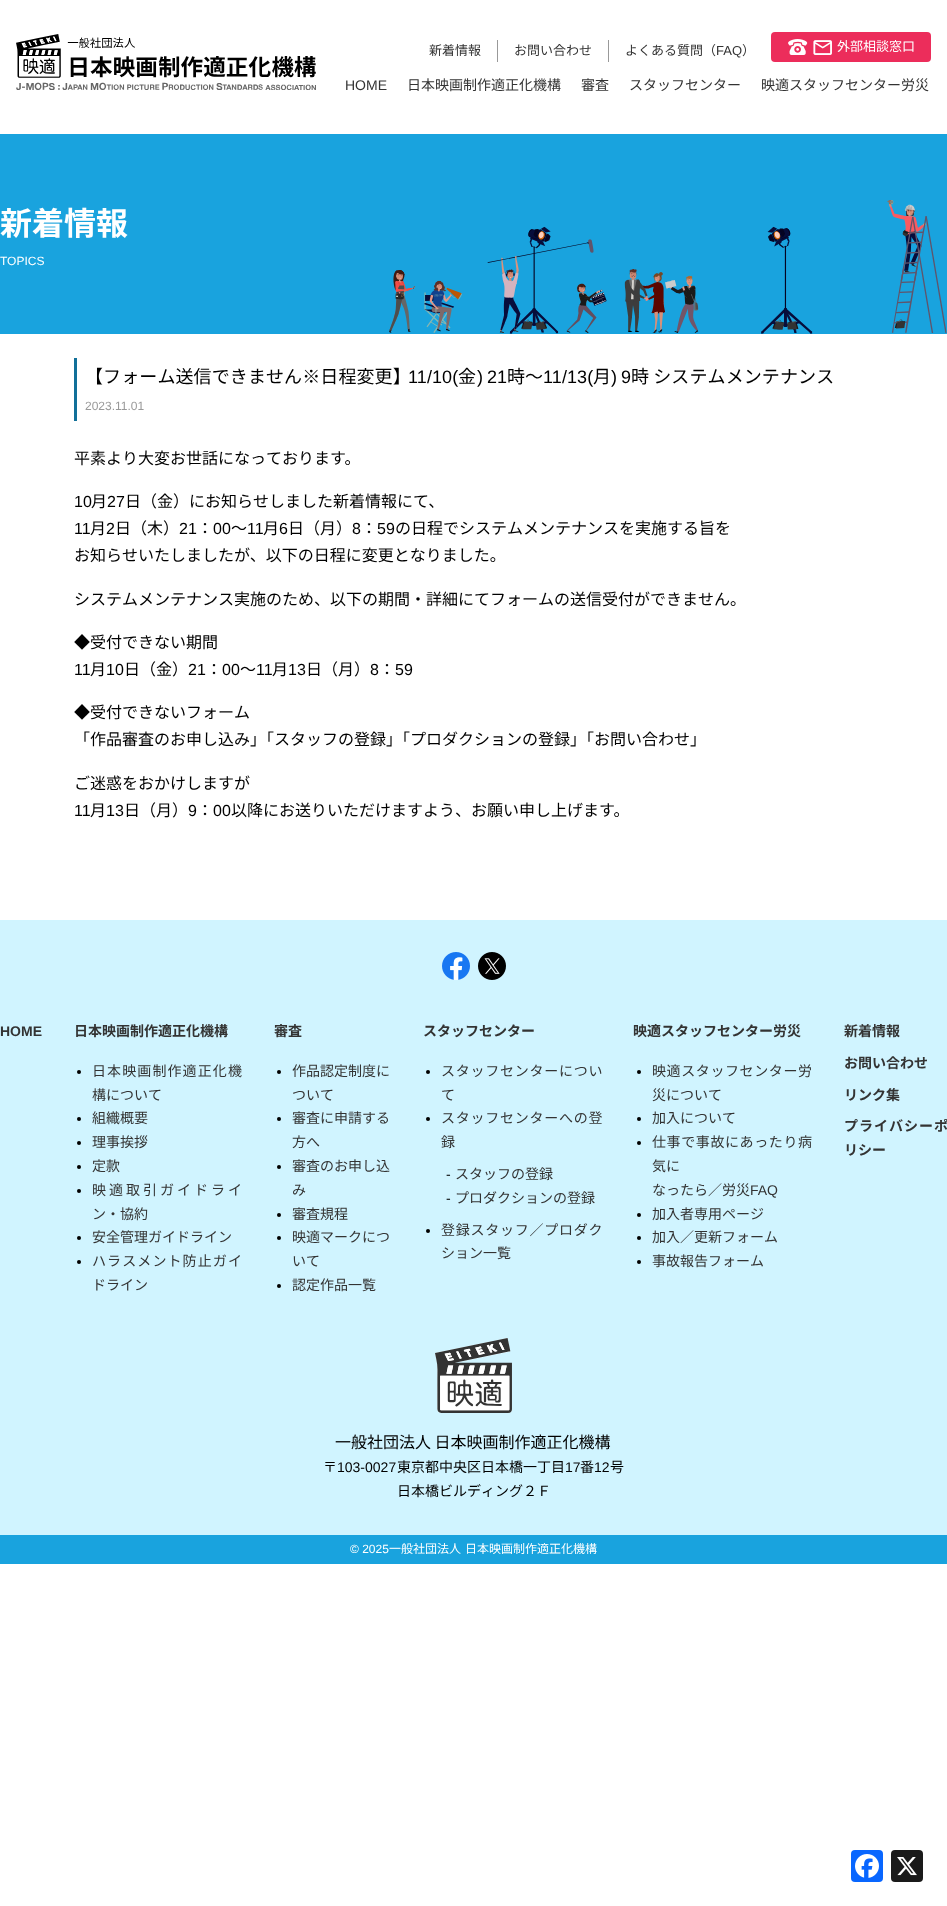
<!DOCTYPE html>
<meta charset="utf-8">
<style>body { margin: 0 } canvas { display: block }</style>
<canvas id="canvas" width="947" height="1906"></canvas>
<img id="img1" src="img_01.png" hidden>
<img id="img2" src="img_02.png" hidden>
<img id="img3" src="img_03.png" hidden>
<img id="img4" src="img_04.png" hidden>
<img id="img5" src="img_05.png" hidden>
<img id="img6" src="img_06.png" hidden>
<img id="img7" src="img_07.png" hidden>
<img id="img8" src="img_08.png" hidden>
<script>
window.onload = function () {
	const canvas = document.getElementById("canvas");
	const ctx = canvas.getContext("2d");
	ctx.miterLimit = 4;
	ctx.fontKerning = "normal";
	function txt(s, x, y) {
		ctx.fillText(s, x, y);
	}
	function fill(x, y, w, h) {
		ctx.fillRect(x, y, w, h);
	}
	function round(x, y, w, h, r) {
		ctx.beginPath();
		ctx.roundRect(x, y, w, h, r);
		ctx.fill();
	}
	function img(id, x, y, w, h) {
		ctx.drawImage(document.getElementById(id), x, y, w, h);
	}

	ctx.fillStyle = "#FFFFFF";
	fill(0, 0, 947, 1906);
	img("img1", 16, 34, 300, 56);
	ctx.fillStyle = "#999999";
	fill(497, 40, 1, 22);
	fill(608, 40, 1, 22);
	ctx.fillStyle = "#EC2D5B";
	round(771, 32, 160, 30, 4);
	img("img2", 788, 39, 44, 16);
	ctx.fillStyle = "#19A3DE";
	fill(0, 134, 947, 200);
	img("img3", 389, 200, 558, 134);
	ctx.fillStyle = "#117099";
	fill(74, 358, 3, 63);
	ctx.fillStyle = "#D0F4FF";
	fill(0, 920, 947, 615);
	img("img4", 442, 952, 28, 28);
	img("img5", 478, 952, 28, 28);
	ctx.fillStyle = "#000000";
	ctx.beginPath();
	ctx.arc(79, 1072, 2, 0, Math.PI * 2);
	ctx.fill();
	ctx.beginPath();
	ctx.arc(79, 1119, 2, 0, Math.PI * 2);
	ctx.fill();
	ctx.beginPath();
	ctx.arc(79, 1143, 2, 0, Math.PI * 2);
	ctx.fill();
	ctx.beginPath();
	ctx.arc(79, 1167, 2, 0, Math.PI * 2);
	ctx.fill();
	ctx.beginPath();
	ctx.arc(79, 1191, 2, 0, Math.PI * 2);
	ctx.fill();
	ctx.beginPath();
	ctx.arc(79, 1238, 2, 0, Math.PI * 2);
	ctx.fill();
	ctx.beginPath();
	ctx.arc(79, 1262, 2, 0, Math.PI * 2);
	ctx.fill();
	ctx.beginPath();
	ctx.arc(279, 1072, 2, 0, Math.PI * 2);
	ctx.fill();
	ctx.beginPath();
	ctx.arc(279, 1119, 2, 0, Math.PI * 2);
	ctx.fill();
	ctx.beginPath();
	ctx.arc(279, 1167, 2, 0, Math.PI * 2);
	ctx.fill();
	ctx.beginPath();
	ctx.arc(279, 1215, 2, 0, Math.PI * 2);
	ctx.fill();
	ctx.beginPath();
	ctx.arc(279, 1238, 2, 0, Math.PI * 2);
	ctx.fill();
	ctx.beginPath();
	ctx.arc(279, 1286, 2, 0, Math.PI * 2);
	ctx.fill();
	ctx.beginPath();
	ctx.arc(428, 1072, 2, 0, Math.PI * 2);
	ctx.fill();
	ctx.beginPath();
	ctx.arc(428, 1119, 2, 0, Math.PI * 2);
	ctx.fill();
	ctx.beginPath();
	ctx.arc(428, 1231, 2, 0, Math.PI * 2);
	ctx.fill();
	ctx.beginPath();
	ctx.arc(639, 1072, 2, 0, Math.PI * 2);
	ctx.fill();
	ctx.beginPath();
	ctx.arc(639, 1119, 2, 0, Math.PI * 2);
	ctx.fill();
	ctx.beginPath();
	ctx.arc(639, 1143, 2, 0, Math.PI * 2);
	ctx.fill();
	ctx.beginPath();
	ctx.arc(639, 1215, 2, 0, Math.PI * 2);
	ctx.fill();
	ctx.beginPath();
	ctx.arc(639, 1238, 2, 0, Math.PI * 2);
	ctx.fill();
	ctx.beginPath();
	ctx.arc(639, 1262, 2, 0, Math.PI * 2);
	ctx.fill();
	img("img6", 435, 1338, 77, 75);
	ctx.fillStyle = "#19A3DE";
	fill(0, 1535, 947, 29);
	ctx.fillStyle = "#0866FF";
	round(851, 1850, 32, 32, 4);
	img("img7", 855, 1854, 24, 24);
	ctx.fillStyle = "#1A1A1A";
	round(891, 1850, 32, 32, 4);
	img("img8", 897, 1857, 20, 19);
	ctx.font = "13px Noto Sans JP";
	ctx.fillStyle = "#333333";
	txt("新着情報", 429, 55);
	txt("お問い合わせ", 514, 55);
	txt("よくある質問（", 625, 55);
	ctx.font = "13px Liberation Sans";
	txt("FAQ", 716, 55);
	ctx.font = "13px Noto Sans JP";
	txt("）", 742, 55);
	ctx.fillStyle = "#FFFFFF";
	txt("外部相談窓口", 837, 51);
	ctx.font = "14px Liberation Sans";
	ctx.fillStyle = "#333333";
	txt("HOME", 345, 90);
	ctx.font = "14px Noto Sans JP";
	txt("日本映画制作適正化機構", 407, 90);
	txt("審査", 581, 90);
	txt("スタッフセンター", 629, 90);
	txt("映適スタッフセンター労災", 761, 90);
	ctx.font = "bold 32px Noto Sans JP";
	ctx.fillStyle = "#FFFFFF";
	txt("新着情報", 0, 235);
	ctx.font = "12px Liberation Sans";
	txt("TOPICS", 0, 265);
	ctx.letterSpacing = "0.1px";
	ctx.font = "18px Noto Sans JP";
	ctx.fillStyle = "#000000";
	txt("【フォーム送信できません※日程変更】", 85, 383);
	ctx.font = "18px Liberation Sans";
	txt("11/10(", 408, 383);
	ctx.font = "18px Noto Sans JP";
	txt("金", 458, 383);
	ctx.font = "18px Liberation Sans";
	txt(")", 477, 383);
	txt("21", 487, 383);
	ctx.font = "18px Noto Sans JP";
	txt("時～", 507, 383);
	ctx.font = "18px Liberation Sans";
	txt("11/13(", 543, 383);
	ctx.font = "18px Noto Sans JP";
	txt("月", 593, 383);
	ctx.font = "18px Liberation Sans";
	txt(")", 611, 383);
	txt("9", 621, 383);
	ctx.font = "18px Noto Sans JP";
	txt("時 システムメンテナンス", 631, 383);
	ctx.letterSpacing = "0px";
	ctx.font = "12px Liberation Sans";
	ctx.fillStyle = "#999999";
	txt("2023.11.01", 85, 410);
	ctx.font = "16px Noto Sans JP";
	ctx.fillStyle = "#000000";
	txt("平素より大変お世話になっております。", 74, 464);
	ctx.font = "16px Liberation Sans";
	txt("10", 74, 507);
	ctx.font = "16px Noto Sans JP";
	txt("月", 91, 507);
	ctx.font = "16px Liberation Sans";
	txt("27", 107, 507);
	ctx.font = "16px Noto Sans JP";
	txt("日（金）にお知らせしました新着情報にて、", 125, 507);
	ctx.font = "16px Liberation Sans";
	txt("11", 74, 534);
	ctx.font = "16px Noto Sans JP";
	txt("月", 90, 534);
	ctx.font = "16px Liberation Sans";
	txt("2", 106, 534);
	ctx.font = "16px Noto Sans JP";
	txt("日（木）", 115, 534);
	ctx.font = "16px Liberation Sans";
	txt("21", 179, 534);
	ctx.font = "16px Noto Sans JP";
	txt("：", 197, 534);
	ctx.font = "16px Liberation Sans";
	txt("00", 213, 534);
	ctx.font = "16px Noto Sans JP";
	txt("～", 231, 534);
	ctx.font = "16px Liberation Sans";
	txt("11", 247, 534);
	ctx.font = "16px Noto Sans JP";
	txt("月", 263, 534);
	ctx.font = "16px Liberation Sans";
	txt("6", 279, 534);
	ctx.font = "16px Noto Sans JP";
	txt("日（月）", 288, 534);
	ctx.font = "16px Liberation Sans";
	txt("8", 352, 534);
	ctx.font = "16px Noto Sans JP";
	txt("：", 361, 534);
	ctx.font = "16px Liberation Sans";
	txt("59", 377, 534);
	ctx.font = "16px Noto Sans JP";
	txt("の日程でシステムメンテナンスを実施する旨を", 395, 534);
	txt("お知らせいたしましたが、以下の日程に変更となりました。", 74, 561);
	txt("システムメンテナンス実施のため、以下の期間・詳細にてフォームの送信受付ができません。", 74, 605);
	txt("◆受付できない期間", 74, 648);
	ctx.font = "16px Liberation Sans";
	txt("11", 74, 675);
	ctx.font = "16px Noto Sans JP";
	txt("月", 90, 675);
	ctx.font = "16px Liberation Sans";
	txt("10", 106, 675);
	ctx.font = "16px Noto Sans JP";
	txt("日（金）", 124, 675);
	ctx.font = "16px Liberation Sans";
	txt("21", 188, 675);
	ctx.font = "16px Noto Sans JP";
	txt("：", 206, 675);
	ctx.font = "16px Liberation Sans";
	txt("00", 222, 675);
	ctx.font = "16px Noto Sans JP";
	txt("～", 240, 675);
	ctx.font = "16px Liberation Sans";
	txt("11", 256, 675);
	ctx.font = "16px Noto Sans JP";
	txt("月", 272, 675);
	ctx.font = "16px Liberation Sans";
	txt("13", 288, 675);
	ctx.font = "16px Noto Sans JP";
	txt("日（月）", 306, 675);
	ctx.font = "16px Liberation Sans";
	txt("8", 370, 675);
	ctx.font = "16px Noto Sans JP";
	txt("：", 379, 675);
	ctx.font = "16px Liberation Sans";
	txt("59", 395, 675);
	ctx.font = "16px Noto Sans JP";
	txt("◆受付できないフォーム", 74, 718);
	txt("「作品審査のお申し込み」「スタッフの登録」「プロダクションの登録」「お問い合わせ」", 74, 745);
	txt("ご迷惑をおかけしますが", 74, 789);
	ctx.font = "16px Liberation Sans";
	txt("11", 74, 816);
	ctx.font = "16px Noto Sans JP";
	txt("月", 90, 816);
	ctx.font = "16px Liberation Sans";
	txt("13", 106, 816);
	ctx.font = "16px Noto Sans JP";
	txt("日（月）", 124, 816);
	ctx.font = "16px Liberation Sans";
	txt("9", 188, 816);
	ctx.font = "16px Noto Sans JP";
	txt("：", 197, 816);
	ctx.font = "16px Liberation Sans";
	txt("00", 213, 816);
	ctx.font = "16px Noto Sans JP";
	txt("以降にお送りいただけますよう、お願い申し上げます。", 231, 816);
	ctx.font = "bold 14px Liberation Sans";
	ctx.fillStyle = "#333333";
	txt("HOME", 0, 1036);
	ctx.font = "bold 14px Noto Sans JP";
	txt("日本映画制作適正化機構", 74, 1036);
	ctx.letterSpacing = "1.1px";
	ctx.font = "14px Noto Sans JP";
	txt("日本映画制作適正化機", 92, 1076);
	ctx.letterSpacing = "0px";
	txt("構について", 92, 1100);
	txt("組織概要", 92, 1123);
	txt("理事挨拶", 92, 1147);
	txt("定款", 92, 1171);
	ctx.letterSpacing = "3px";
	txt("映適取引ガイドライ", 92, 1195);
	ctx.letterSpacing = "0px";
	txt("ン・協約", 92, 1219);
	txt("安全管理ガイドライン", 92, 1242);
	ctx.letterSpacing = "1.1px";
	txt("ハラスメント防止ガイ", 92, 1266);
	ctx.letterSpacing = "0px";
	txt("ドライン", 92, 1290);
	ctx.font = "bold 14px Noto Sans JP";
	txt("審査", 274, 1036);
	ctx.font = "14px Noto Sans JP";
	txt("作品認定制度に", 292, 1076);
	txt("ついて", 292, 1100);
	txt("審査に申請する", 292, 1123);
	txt("方へ", 292, 1147);
	txt("審査のお申し込", 292, 1171);
	txt("み", 292, 1195);
	txt("審査規程", 292, 1219);
	txt("映適マークにつ", 292, 1242);
	txt("いて", 292, 1266);
	txt("認定作品一覧", 292, 1290);
	ctx.font = "bold 14px Noto Sans JP";
	txt("スタッフセンター", 423, 1036);
	ctx.letterSpacing = "0.75px";
	ctx.font = "14px Noto Sans JP";
	txt("スタッフセンターについ", 441, 1076);
	ctx.letterSpacing = "0px";
	txt("て", 441, 1100);
	ctx.letterSpacing = "0.75px";
	txt("スタッフセンターへの登", 441, 1123);
	ctx.letterSpacing = "0px";
	txt("録", 441, 1147);
	ctx.font = "14px Liberation Sans";
	ctx.fillStyle = "#000000";
	txt("-", 446, 1179);
	ctx.font = "14px Noto Sans JP";
	ctx.fillStyle = "#333333";
	txt("スタッフの登録", 455, 1179);
	ctx.font = "14px Liberation Sans";
	ctx.fillStyle = "#000000";
	txt("-", 446, 1203);
	ctx.font = "14px Noto Sans JP";
	ctx.fillStyle = "#333333";
	txt("プロダクションの登録", 455, 1203);
	ctx.letterSpacing = "0.75px";
	txt("登録スタッフ／プロダク", 441, 1235);
	ctx.letterSpacing = "0px";
	txt("ション一覧", 441, 1258);
	ctx.font = "bold 14px Noto Sans JP";
	txt("映適スタッフセンター労災", 633, 1036);
	ctx.letterSpacing = "0.6px";
	ctx.font = "14px Noto Sans JP";
	txt("映適スタッフセンター労", 652, 1076);
	ctx.letterSpacing = "0px";
	txt("災について", 652, 1100);
	txt("加入について", 652, 1123);
	ctx.letterSpacing = "0.6px";
	txt("仕事で事故にあったり病", 652, 1147);
	ctx.letterSpacing = "0px";
	txt("気に", 652, 1171);
	txt("なったら／労災", 652, 1195);
	ctx.font = "14px Liberation Sans";
	txt("FAQ", 750, 1195);
	ctx.font = "14px Noto Sans JP";
	txt("加入者専用ページ", 652, 1219);
	txt("加入／更新フォーム", 652, 1242);
	txt("事故報告フォーム", 652, 1266);
	ctx.font = "bold 14px Noto Sans JP";
	txt("新着情報", 844, 1036);
	txt("お問い合わせ", 844, 1068);
	txt("リンク集", 844, 1100);
	ctx.letterSpacing = "1px";
	txt("プライバシーポ", 844, 1131);
	ctx.letterSpacing = "0px";
	txt("リシー", 844, 1155);
	ctx.font = "16px Noto Sans JP";
	ctx.fillStyle = "#000000";
	txt("一般社団法人 日本映画制作適正化機構", 335, 1448);
	ctx.font = "14px Noto Sans JP";
	txt("〒", 323, 1472);
	ctx.font = "14px Liberation Sans";
	txt("103-0027", 337, 1472);
	ctx.font = "14px Noto Sans JP";
	txt("東京都中央区日本橋一丁目", 397, 1472);
	ctx.font = "14px Liberation Sans";
	txt("17", 565, 1472);
	ctx.font = "14px Noto Sans JP";
	txt("番", 580, 1472);
	ctx.font = "14px Liberation Sans";
	txt("12", 594, 1472);
	ctx.font = "14px Noto Sans JP";
	txt("号", 610, 1472);
	txt("日本橋ビルディング２Ｆ", 397, 1496);
	ctx.font = "12px Liberation Sans";
	ctx.fillStyle = "#FFFFFF";
	txt("© 2025", 350, 1553);
	ctx.font = "12px Noto Sans JP";
	txt("一般社団法人", 389, 1553);
	txt("日本映画制作適正化機構", 465, 1553);
};
</script>
